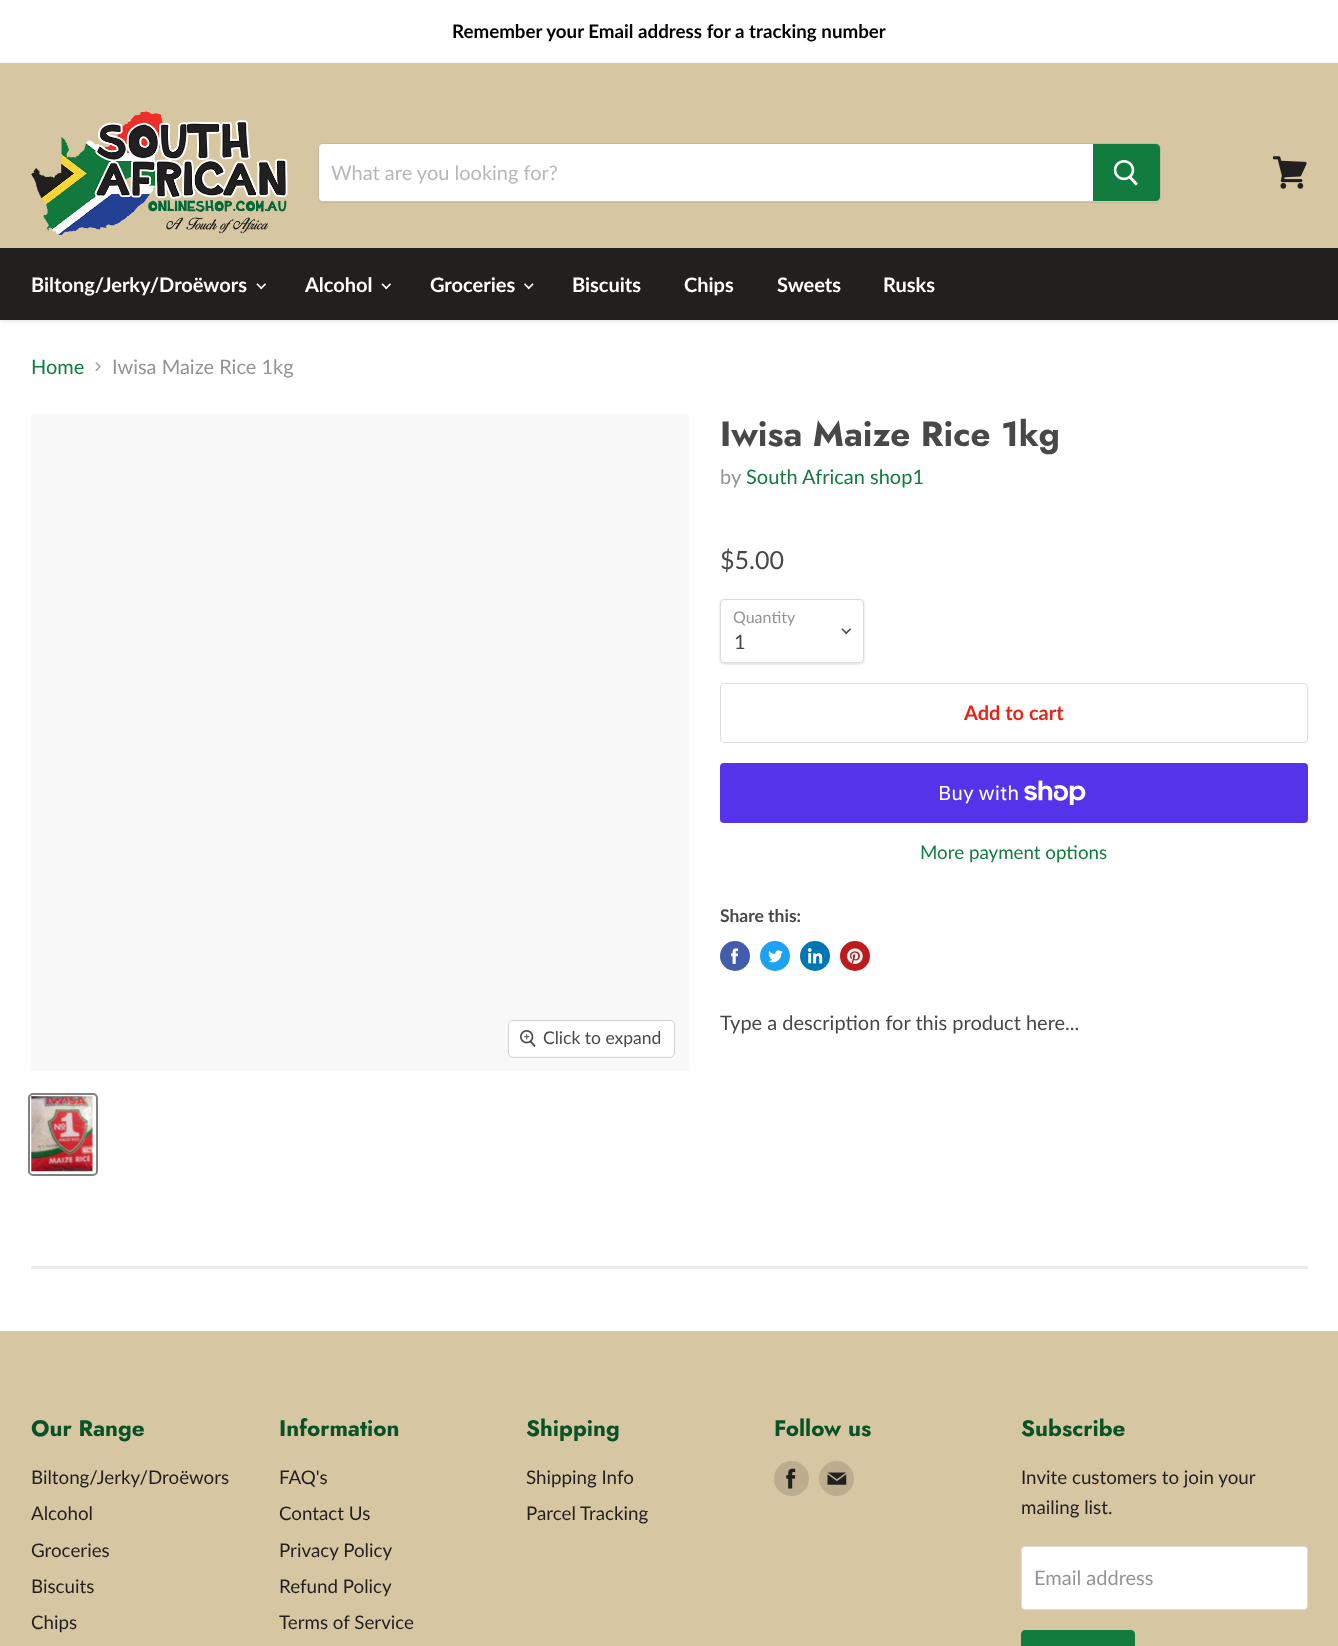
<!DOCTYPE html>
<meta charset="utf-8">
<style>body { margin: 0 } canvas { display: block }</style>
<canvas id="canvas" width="1338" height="1646"></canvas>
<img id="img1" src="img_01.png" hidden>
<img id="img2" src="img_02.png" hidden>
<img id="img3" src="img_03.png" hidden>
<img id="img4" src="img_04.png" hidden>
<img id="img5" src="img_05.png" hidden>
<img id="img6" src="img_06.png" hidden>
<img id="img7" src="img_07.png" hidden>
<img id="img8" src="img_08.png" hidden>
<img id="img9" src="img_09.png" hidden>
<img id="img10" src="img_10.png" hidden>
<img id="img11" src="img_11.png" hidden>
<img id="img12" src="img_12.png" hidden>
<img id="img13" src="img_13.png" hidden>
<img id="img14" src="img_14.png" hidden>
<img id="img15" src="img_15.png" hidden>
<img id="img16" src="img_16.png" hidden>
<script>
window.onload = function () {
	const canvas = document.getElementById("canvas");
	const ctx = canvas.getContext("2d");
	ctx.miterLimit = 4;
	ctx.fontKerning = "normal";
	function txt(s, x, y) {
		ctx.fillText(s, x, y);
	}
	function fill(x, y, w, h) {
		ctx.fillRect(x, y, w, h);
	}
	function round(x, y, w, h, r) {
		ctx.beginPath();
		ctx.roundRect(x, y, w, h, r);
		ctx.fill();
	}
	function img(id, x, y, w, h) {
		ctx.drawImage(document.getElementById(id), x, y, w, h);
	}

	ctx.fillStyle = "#FFFFFF";
	fill(0, 0, 1338, 1646);
	ctx.fillStyle = "rgba(128, 128, 128, 0.25)";
	ctx.filter = "blur(2.5px)";
	ctx.beginPath();
	ctx.rect(0, 64, 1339, 257);
	ctx.fill();
	ctx.filter = "none";
	ctx.fillStyle = "#D6C6A2";
	fill(0, 63, 1338, 185);
	img("img1", 31, 111, 257, 124);
	ctx.beginPath();
	ctx.roundRect(318.5, 143.5, 842, 59, 4.5);
	ctx.strokeStyle = "rgba(128, 128, 128, 0.2)";
	ctx.stroke();
	ctx.fillStyle = "#FFFFFF";
	ctx.beginPath();
	ctx.roundRect(319, 144, 774, 57, [4, 0, 0, 4]);
	ctx.fill();
	ctx.fillStyle = "#127B3E";
	ctx.beginPath();
	ctx.roundRect(1093.5, 144.5, 66, 56, [0, 3.5, 3.5, 0]);
	ctx.fill();
	ctx.strokeStyle = "#127B3E";
	ctx.stroke();
	img("img2", 1114, 160, 24, 26);
	img("img3", 1273, 156, 34, 33);
	ctx.fillStyle = "#221F1F";
	fill(0, 248, 1338, 72);
	img("img4", 256, 283, 10, 7);
	img("img4", 381, 283, 10, 7);
	img("img5", 524, 283, 10, 7);
	img("img6", 95, 362, 6, 10);
	ctx.fillStyle = "rgba(0, 0, 0, 0.15)";
	ctx.filter = "blur(1px)";
	ctx.beginPath();
	ctx.roundRect(720, 600, 144, 64, 4);
	ctx.fill();
	ctx.filter = "none";
	ctx.fillStyle = "#FFFFFF";
	ctx.beginPath();
	ctx.roundRect(720.5, 599.5, 143, 63, 3.5);
	ctx.fill();
	ctx.strokeStyle = "#DDDDDD";
	ctx.stroke();
	img("img7", 841, 628, 10, 7);
	ctx.beginPath();
	ctx.roundRect(720.5, 683.5, 587, 59, 3.5);
	ctx.stroke();
	ctx.fillStyle = "#5433EB";
	round(720, 763, 588, 60, 4);
	img("img8", 1024, 780, 62, 25);
	ctx.fillStyle = "#425DAB";
	ctx.beginPath();
	ctx.arc(735, 956, 15, 0, Math.PI * 2);
	ctx.fill();
	img("img9", 731, 948, 8, 16);
	ctx.fillStyle = "#1DA1F2";
	ctx.beginPath();
	ctx.arc(775, 956, 15, 0, Math.PI * 2);
	ctx.fill();
	img("img10", 768, 950, 15, 13);
	ctx.fillStyle = "#0077B5";
	ctx.beginPath();
	ctx.arc(815, 956, 15, 0, Math.PI * 2);
	ctx.fill();
	img("img11", 807, 948, 16, 16);
	ctx.fillStyle = "#BD1C1C";
	ctx.beginPath();
	ctx.arc(855, 956, 15, 0, Math.PI * 2);
	ctx.fill();
	img("img12", 847, 948, 16, 16);
	ctx.fillStyle = "#F8F8F8";
	fill(31, 414, 658, 657);
	ctx.beginPath();
	ctx.roundRect(508.5, 1020.5, 166, 37, 4.5);
	ctx.strokeStyle = "#D3D3D3";
	ctx.stroke();
	ctx.fillStyle = "rgba(255, 255, 255, 0.9)";
	round(509, 1021, 165, 35, 4);
	img("img13", 520, 1030, 16, 17);
	ctx.beginPath();
	ctx.roundRect(29, 1094, 68, 81, 4);
	ctx.strokeStyle = "#818181";
	ctx.lineWidth = 2;
	ctx.stroke();
	img("img14", 31, 1096, 62, 76);
	ctx.fillStyle = "#EAEAEA";
	fill(31, 1266, 1277, 3);
	ctx.fillStyle = "#D6C6A2";
	fill(0, 1331, 1338, 315);
	ctx.fillStyle = "#BBAD8E";
	ctx.beginPath();
	ctx.arc(791.5, 1478.5, 17.5, 0, Math.PI * 2);
	ctx.fill();
	img("img15", 786, 1468, 10, 21);
	ctx.beginPath();
	ctx.arc(836.5, 1478.5, 17.5, 0, Math.PI * 2);
	ctx.fill();
	img("img16", 827, 1472, 20, 13);
	ctx.fillStyle = "#FFFFFF";
	ctx.beginPath();
	ctx.roundRect(1021.5, 1546.5, 286, 63, 3.5);
	ctx.fill();
	ctx.strokeStyle = "#DDDDDD";
	ctx.lineWidth = 1;
	ctx.stroke();
	ctx.fillStyle = "#127B3E";
	ctx.beginPath();
	ctx.roundRect(1021.5, 1630.5, 113, 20, 3.5);
	ctx.fill();
	ctx.strokeStyle = "#127B3E";
	ctx.stroke();
	ctx.font = "bold 18.75px Lato";
	ctx.fillStyle = "#000000";
	txt("Remember your Email address for a tracking number", 452, 38);
	ctx.font = "20px Lato";
	ctx.fillStyle = "#B8B8B8";
	txt("What are you looking for?", 331, 180);
	ctx.font = "bold 20px Lato";
	ctx.fillStyle = "#FFFFFF";
	txt("Biltong/Jerky/Droëwors", 31, 292);
	txt("Alcohol", 305, 292);
	txt("Groceries", 430, 292);
	txt("Biscuits", 572, 292);
	txt("Chips", 684, 292);
	txt("Sweets", 777, 292);
	txt("Rusks", 883, 292);
	ctx.font = "20px Lato";
	ctx.fillStyle = "#127B3E";
	txt("Home", 31, 374);
	ctx.fillStyle = "#949494";
	txt("Iwisa Maize Rice 1kg", 112, 374);
	ctx.font = "bold 35px Jost";
	ctx.fillStyle = "#484848";
	txt("Iwisa Maize Rice 1kg", 720, 446);
	ctx.font = "20px Lato";
	ctx.fillStyle = "#949494";
	txt("by", 720, 484);
	ctx.fillStyle = "#127B3E";
	txt("South African shop1", 746, 484);
	ctx.font = "25px Lato";
	ctx.fillStyle = "#484848";
	txt("$5.00", 720, 569);
	ctx.font = "16px Lato";
	ctx.fillStyle = "#949494";
	txt("Quantity", 733, 623);
	ctx.font = "20px Lato";
	ctx.fillStyle = "#484848";
	txt("1", 734, 649);
	ctx.font = "bold 20px Lato";
	ctx.fillStyle = "#E32619";
	txt("Add to cart", 964, 720);
	ctx.font = "20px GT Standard";
	ctx.fillStyle = "#FFFFFF";
	txt("Buy with", 938, 800);
	ctx.font = "18.75px Lato";
	ctx.fillStyle = "#127B3E";
	txt("More payment options", 920, 859);
	ctx.font = "bold 17.5px Lato";
	ctx.fillStyle = "#484848";
	txt("Share this:", 720, 922);
	ctx.font = "20px Lato";
	txt("Type a description for this product here...", 720, 1030);
	ctx.font = "17.5px Lato";
	txt("Click to expand", 543, 1044);
	ctx.font = "bold 22.5px Jost";
	ctx.fillStyle = "#085226";
	txt("Our Range", 31, 1436);
	ctx.font = "18.75px Lato";
	ctx.fillStyle = "#211F1F";
	txt("Biltong/Jerky/Droëwors", 31, 1484);
	txt("Alcohol", 31, 1520);
	txt("Groceries", 31, 1557);
	txt("Biscuits", 31, 1593);
	txt("Chips", 31, 1629);
	ctx.font = "bold 22.5px Jost";
	ctx.fillStyle = "#085226";
	txt("Information", 279, 1436);
	ctx.font = "18.75px Lato";
	ctx.fillStyle = "#211F1F";
	txt("FAQ's", 279, 1484);
	txt("Contact Us", 279, 1520);
	txt("Privacy Policy", 279, 1557);
	txt("Refund Policy", 279, 1593);
	txt("Terms of Service", 279, 1629);
	ctx.font = "bold 22.5px Jost";
	ctx.fillStyle = "#085226";
	txt("Shipping", 526, 1436);
	ctx.font = "18.75px Lato";
	ctx.fillStyle = "#211F1F";
	txt("Shipping Info", 526, 1484);
	txt("Parcel Tracking", 526, 1520);
	ctx.font = "bold 22.5px Jost";
	ctx.fillStyle = "#085226";
	txt("Follow us", 774, 1436);
	txt("Subscribe", 1021, 1436);
	ctx.font = "18.75px Lato";
	ctx.fillStyle = "#211F1F";
	txt("Invite customers to join your", 1021, 1484);
	txt("mailing list.", 1021, 1514);
	ctx.font = "20px Lato";
	ctx.fillStyle = "#949494";
	txt("Email address", 1034, 1585);
};
</script>
